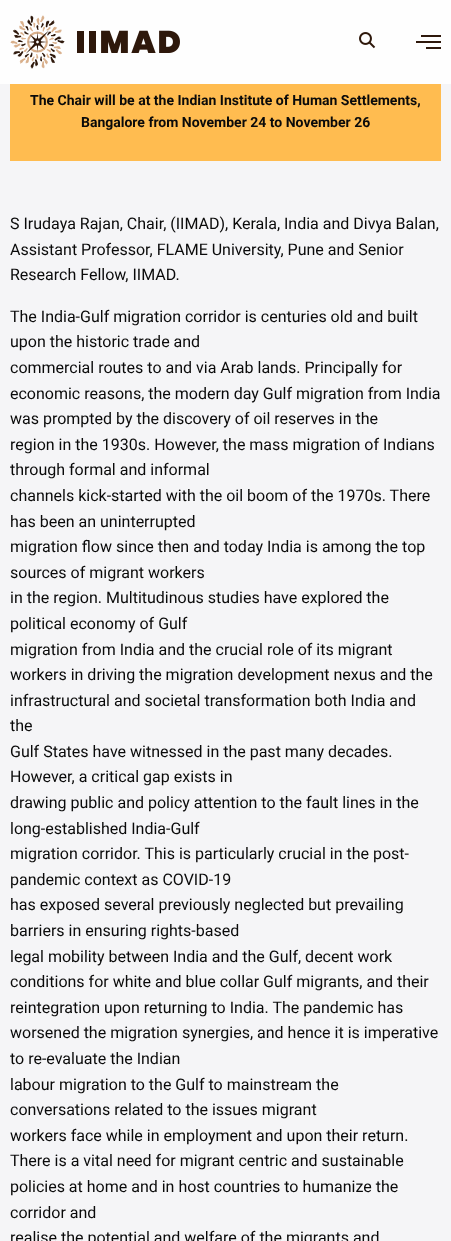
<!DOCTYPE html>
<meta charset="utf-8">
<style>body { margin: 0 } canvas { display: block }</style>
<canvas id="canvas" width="451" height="1241"></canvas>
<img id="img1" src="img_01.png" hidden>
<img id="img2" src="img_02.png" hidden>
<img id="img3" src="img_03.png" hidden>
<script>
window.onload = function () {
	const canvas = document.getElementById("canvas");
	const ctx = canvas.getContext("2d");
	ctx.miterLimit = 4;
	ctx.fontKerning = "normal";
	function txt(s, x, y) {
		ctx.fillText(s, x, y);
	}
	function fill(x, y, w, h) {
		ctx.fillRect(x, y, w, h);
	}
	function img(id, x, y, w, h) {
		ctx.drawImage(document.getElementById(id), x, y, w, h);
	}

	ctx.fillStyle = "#F5F5F7";
	fill(0, 0, 451, 1241);
	ctx.fillStyle = "#FEFEFE";
	fill(0, 0, 451, 84);
	img("img1", 10, 15, 55, 54);
	img("img2", 77, 30, 103, 23);
	img("img3", 359, 32, 17, 17);
	ctx.fillStyle = "#2E180B";
	fill(421, 35, 20, 2);
	fill(416, 41, 25, 2);
	fill(426, 47, 15, 2);
	ctx.fillStyle = "#FFBC50";
	fill(10, 84, 431, 77);
	ctx.font = "bold 14px Roboto";
	ctx.fillStyle = "#0A0A0A";
	txt("The Chair will be at the Indian Institute of Human Settlements,", 30, 105);
	txt("Bangalore from November 24 to November 26", 81, 127);
	ctx.font = "16px Roboto";
	txt("S Irudaya Rajan, Chair, (IIMAD), Kerala, India and Divya Balan,", 10, 229);
	txt("Assistant Professor, FLAME University, Pune and Senior", 10, 255);
	txt("Research Fellow, IIMAD.", 10, 280);
	txt("The India-Gulf migration corridor is centuries old and built", 10, 322);
	txt("upon the historic trade and", 10, 347);
	txt("commercial routes to and via Arab lands. Principally for", 10, 373);
	txt("economic reasons, the modern day Gulf migration from India", 10, 399);
	txt("was prompted by the discovery of oil reserves in the", 10, 424);
	txt("region in the 1930s. However, the mass migration of Indians", 10, 450);
	txt("through formal and informal", 10, 475);
	txt("channels kick-started with the oil boom of the 1970s. There", 10, 501);
	txt("has been an uninterrupted", 10, 527);
	txt("migration flow since then and today India is among the top", 10, 552);
	txt("sources of migrant workers", 10, 578);
	txt("in the region. Multitudinous studies have explored the", 10, 603);
	txt("political economy of Gulf", 10, 629);
	txt("migration from India and the crucial role of its migrant", 10, 655);
	txt("workers in driving the migration development nexus and the", 10, 680);
	txt("infrastructural and societal transformation both India and", 10, 706);
	txt("the", 10, 731);
	txt("Gulf States have witnessed in the past many decades.", 10, 757);
	txt("However, a critical gap exists in", 10, 782);
	txt("drawing public and policy attention to the fault lines in the", 10, 808);
	txt("long-established India-Gulf", 10, 834);
	txt("migration corridor. This is particularly crucial in the post-", 10, 859);
	txt("pandemic context as COVID-19", 10, 885);
	txt("has exposed several previously neglected but prevailing", 10, 910);
	txt("barriers in ensuring rights-based", 10, 936);
	txt("legal mobility between India and the Gulf, decent work", 10, 962);
	txt("conditions for white and blue collar Gulf migrants, and their", 10, 987);
	txt("reintegration upon returning to India. The pandemic has", 10, 1013);
	txt("worsened the migration synergies, and hence it is imperative", 10, 1038);
	txt("to re-evaluate the Indian", 10, 1064);
	txt("labour migration to the Gulf to mainstream the", 10, 1090);
	txt("conversations related to the issues migrant", 10, 1115);
	txt("workers face while in employment and upon their return.", 10, 1141);
	txt("There is a vital need for migrant centric and sustainable", 10, 1166);
	txt("policies at home and in host countries to humanize the", 10, 1192);
	txt("corridor and", 10, 1218);
	txt("realise the potential and welfare of the migrants and", 10, 1243);
};
</script>
